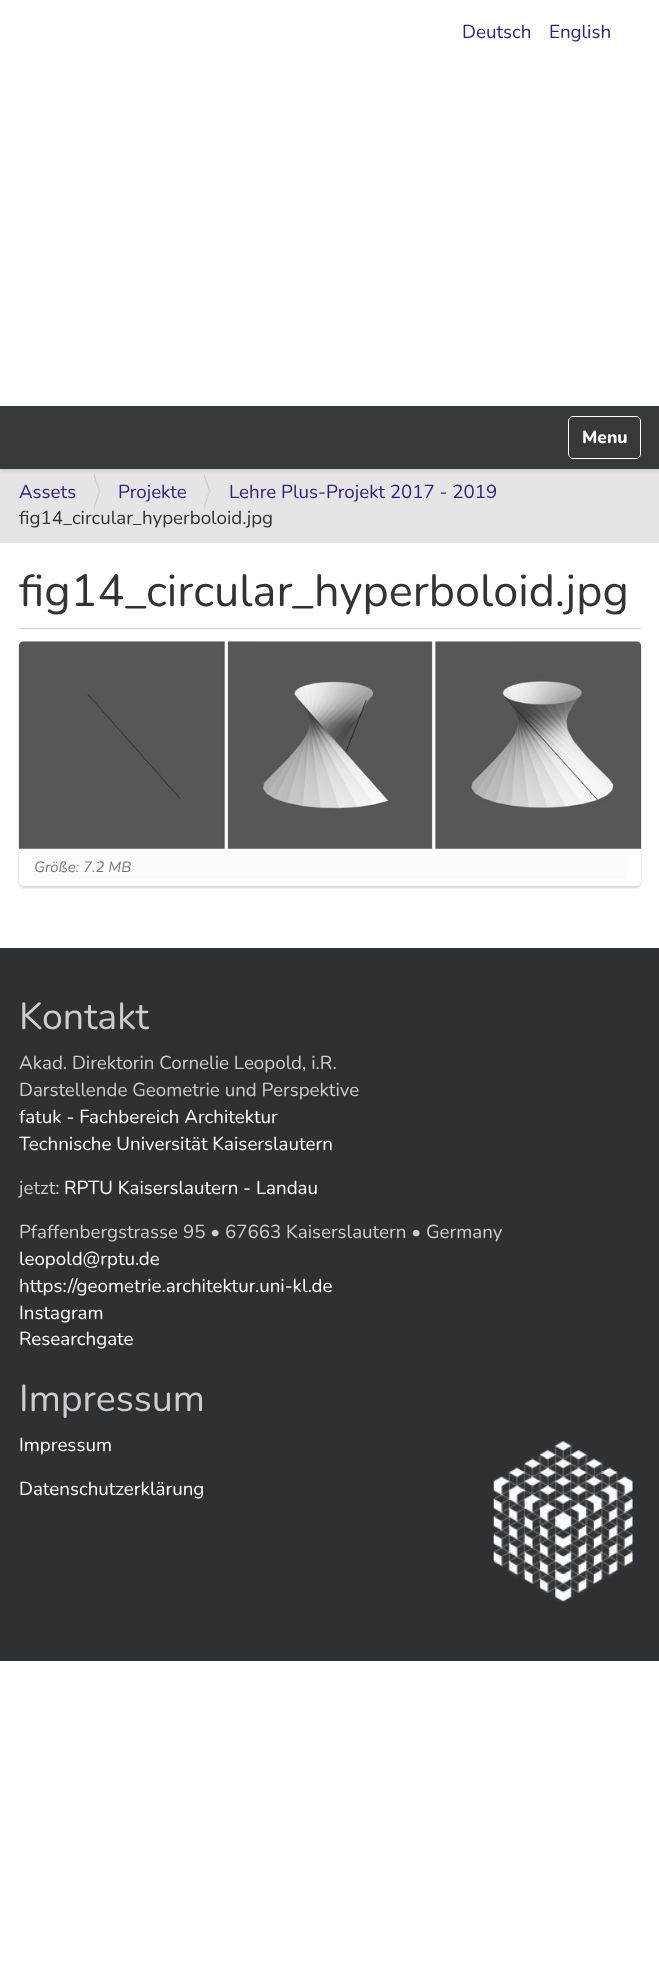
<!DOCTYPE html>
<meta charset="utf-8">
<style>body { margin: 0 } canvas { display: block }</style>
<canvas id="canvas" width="659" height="1963"></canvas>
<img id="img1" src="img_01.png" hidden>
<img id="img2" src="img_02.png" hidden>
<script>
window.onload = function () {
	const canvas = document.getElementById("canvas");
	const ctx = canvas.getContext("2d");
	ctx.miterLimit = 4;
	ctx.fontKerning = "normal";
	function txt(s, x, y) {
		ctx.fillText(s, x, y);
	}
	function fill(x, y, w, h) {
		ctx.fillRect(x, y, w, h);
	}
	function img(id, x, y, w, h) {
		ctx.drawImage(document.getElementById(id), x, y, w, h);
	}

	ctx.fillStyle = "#FFFFFF";
	fill(0, 0, 659, 1963);
	ctx.fillStyle = "#E6E4E4";
	fill(0, 469, 659, 74);
	ctx.fillStyle = "rgba(0, 0, 0, 0.17)";
	ctx.filter = "blur(2px)";
	ctx.beginPath();
	ctx.rect(0, 408, 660, 62);
	ctx.fill();
	ctx.filter = "none";
	ctx.fillStyle = "#36393C";
	fill(0, 406, 659, 63);
	ctx.beginPath();
	ctx.roundRect(568.5, 416.5, 72, 42, 4.5);
	ctx.strokeStyle = "#FFFFFF";
	ctx.stroke();
	ctx.fillStyle = "#CCCCCC";
	ctx.beginPath();
	ctx.moveTo(94, 510);
	ctx.lineTo(94, 472.5);
	ctx.lineTo(100, 491);
	ctx.closePath();
	ctx.fill();
	ctx.fillStyle = "#E6E4E4";
	ctx.beginPath();
	ctx.moveTo(92.5, 510);
	ctx.lineTo(92.5, 472.5);
	ctx.lineTo(99, 491);
	ctx.closePath();
	ctx.fill();
	ctx.fillStyle = "#CCCCCC";
	ctx.beginPath();
	ctx.moveTo(204, 510);
	ctx.lineTo(204, 472.5);
	ctx.lineTo(210, 491);
	ctx.closePath();
	ctx.fill();
	ctx.fillStyle = "#E6E4E4";
	ctx.beginPath();
	ctx.moveTo(202.5, 510);
	ctx.lineTo(202.5, 472.5);
	ctx.lineTo(209, 491);
	ctx.closePath();
	ctx.fill();
	ctx.fillStyle = "#CCCCCC";
	fill(19, 628, 622, 1);
	ctx.save();
	ctx.beginPath();
	ctx.moveTo(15, 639);
	ctx.lineTo(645, 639);
	ctx.lineTo(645, 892);
	ctx.lineTo(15, 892);
	ctx.closePath();
	ctx.moveTo(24, 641);
	ctx.lineTo(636, 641);
	ctx.bezierCurveTo(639, 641, 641, 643, 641, 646);
	ctx.lineTo(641, 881);
	ctx.bezierCurveTo(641, 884, 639, 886, 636, 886);
	ctx.lineTo(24, 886);
	ctx.bezierCurveTo(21, 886, 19, 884, 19, 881);
	ctx.lineTo(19, 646);
	ctx.bezierCurveTo(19, 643, 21, 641, 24, 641);
	ctx.closePath();
	ctx.clip("evenodd");
	ctx.fillStyle = "rgba(0, 0, 0, 0.17)";
	ctx.filter = "blur(1px)";
	ctx.beginPath();
	ctx.roundRect(19, 643, 622, 245, 5);
	ctx.fill();
	ctx.filter = "none";
	ctx.restore();
	img("img1", 18, 641, 624, 208);
	ctx.fillStyle = "#FCFCFD";
	fill(34, 856, 592, 23);
	ctx.fillStyle = "#2E3133";
	fill(0, 948, 659, 713);
	img("img2", 493, 1441, 140, 161);
	ctx.font = "18.75px Nunito";
	ctx.fillStyle = "#352082";
	txt("Deutsch", 462, 38);
	txt("English", 549, 38);
	ctx.font = "800 17.5px Nunito";
	ctx.fillStyle = "#FFFFFF";
	txt("Menu", 582, 443);
	ctx.font = "18.75px Nunito";
	ctx.fillStyle = "#352082";
	txt("Assets", 19, 498);
	txt("Projekte", 118, 498);
	txt("Lehre Plus-Projekt 2017 - 2019", 229, 498);
	ctx.fillStyle = "#333333";
	txt("fig14_circular_hyperboloid.jpg", 19, 524);
	ctx.font = "45px Nunito";
	txt("fig14_circular_hyperboloid.jpg", 19, 606);
	ctx.font = "italic 15px Nunito";
	ctx.fillStyle = "#777777";
	txt("Größe: 7.2 MB", 34, 872);
	ctx.font = "37.5px Nunito";
	ctx.fillStyle = "#CCCCCC";
	txt("Kontakt", 19, 1029);
	ctx.font = "18.75px Nunito";
	txt("Akad. Direktorin Cornelie Leopold, i.R.", 19, 1069);
	txt("Darstellende Geometrie und Perspektive", 19, 1096);
	ctx.fillStyle = "#FFFFFF";
	txt("fatuk - Fachbereich Architektur", 19, 1123);
	txt("Technische Universität Kaiserslautern", 19, 1150);
	ctx.fillStyle = "#CCCCCC";
	txt("jetzt:", 19, 1194);
	ctx.fillStyle = "#FFFFFF";
	txt("RPTU Kaiserslautern - Landau", 64, 1194);
	ctx.fillStyle = "#CCCCCC";
	txt("Pfaffenbergstrasse 95 • 67663 Kaiserslautern • Germany", 19, 1238);
	ctx.fillStyle = "#FFFFFF";
	txt("leopold@rptu.de", 19, 1265);
	txt("https://geometrie.architektur.uni-kl.de", 19, 1292);
	txt("Instagram", 19, 1319);
	txt("Researchgate", 19, 1345);
	ctx.font = "37.5px Nunito";
	ctx.fillStyle = "#CCCCCC";
	txt("Impressum", 19, 1411);
	ctx.font = "18.75px Nunito";
	ctx.fillStyle = "#FFFFFF";
	txt("Impressum", 19, 1451);
	txt("Datenschutzerklärung", 19, 1495);
};
</script>
